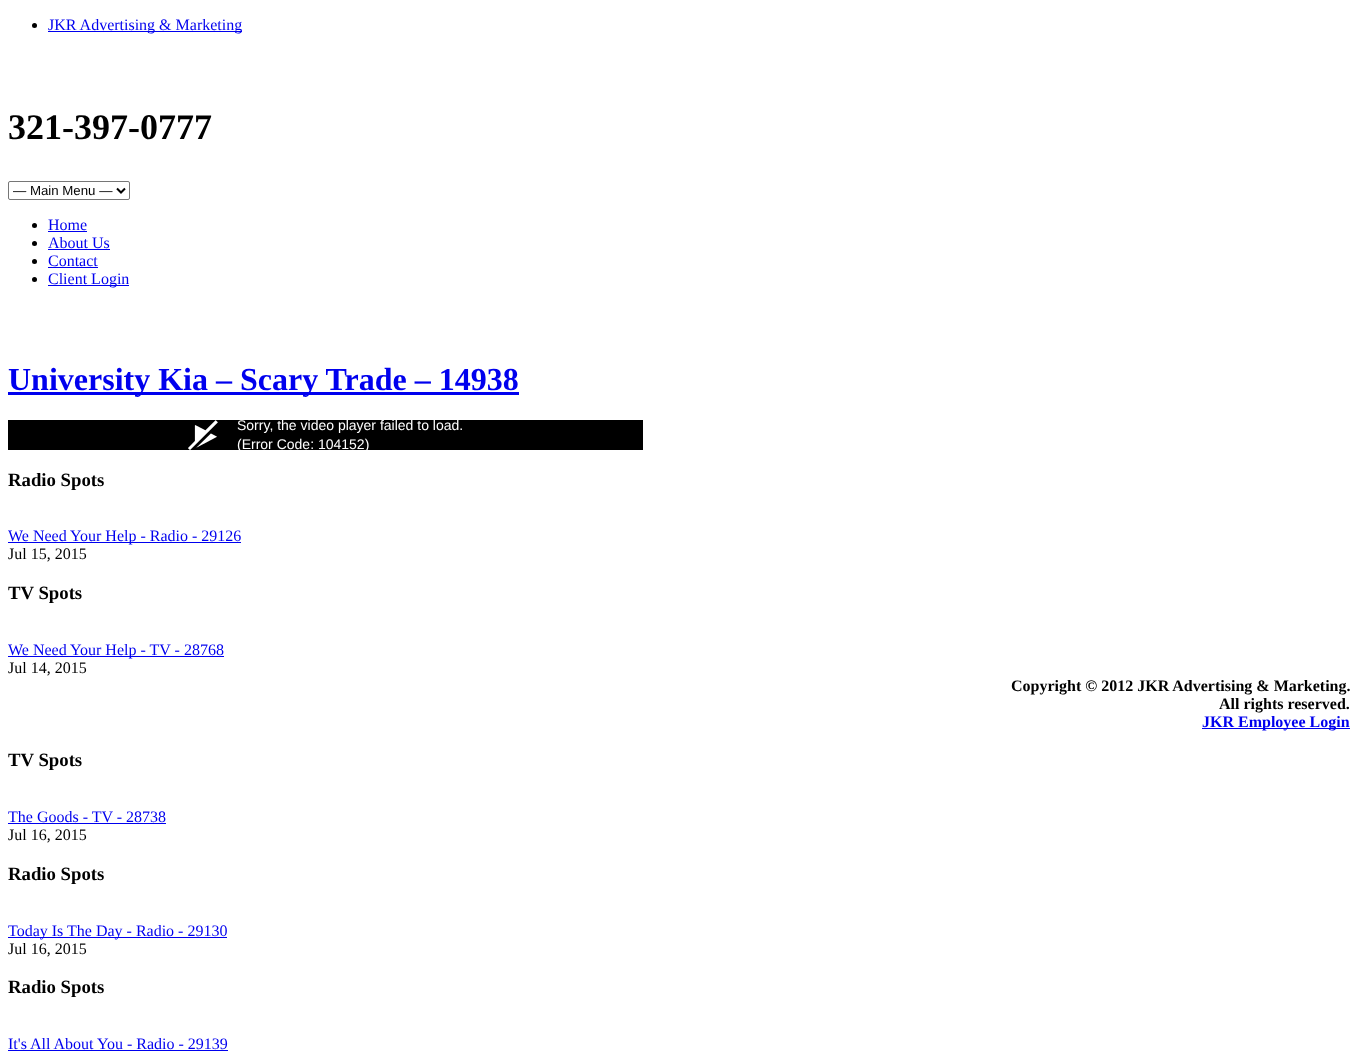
<!DOCTYPE html>
<meta charset="utf-8">
<style>body { margin: 0 } canvas { display: block }</style>
<canvas id="canvas" width="1358" height="1063"></canvas>
<img id="img1" src="img_01.png" hidden>
<script>
window.onload = function () {
	const canvas = document.getElementById("canvas");
	const ctx = canvas.getContext("2d");
	ctx.miterLimit = 4;
	ctx.fontKerning = "normal";
	function txt(s, x, y) {
		ctx.fillText(s, x, y);
	}
	function fill(x, y, w, h) {
		ctx.fillRect(x, y, w, h);
	}
	function img(id, x, y, w, h) {
		ctx.drawImage(document.getElementById(id), x, y, w, h);
	}

	ctx.fillStyle = "#FFFFFF";
	fill(0, 0, 1358, 1063);
	ctx.fillStyle = "#000000";
	ctx.beginPath();
	ctx.arc(34.5, 25.5, 2.5, 0, Math.PI * 2);
	ctx.fill();
	ctx.fillStyle = "#0000EE";
	fill(48, 31, 194, 1);
	ctx.beginPath();
	ctx.roundRect(8.5, 181.5, 121, 18, 1.5);
	ctx.strokeStyle = "#767676";
	ctx.stroke();
	ctx.beginPath();
	ctx.moveTo(117, 188.5);
	ctx.lineTo(121, 192.5);
	ctx.lineTo(125, 188.5);
	ctx.strokeStyle = "#000000";
	ctx.lineWidth = 2;
	ctx.stroke();
	ctx.fillStyle = "#000000";
	ctx.beginPath();
	ctx.arc(34.5, 225.5, 2.5, 0, Math.PI * 2);
	ctx.fill();
	ctx.fillStyle = "#0000EE";
	fill(48, 231, 39, 1);
	ctx.fillStyle = "#000000";
	ctx.beginPath();
	ctx.arc(34.5, 243.5, 2.5, 0, Math.PI * 2);
	ctx.fill();
	ctx.fillStyle = "#0000EE";
	fill(48, 249, 62, 1);
	ctx.fillStyle = "#000000";
	ctx.beginPath();
	ctx.arc(34.5, 261.5, 2.5, 0, Math.PI * 2);
	ctx.fill();
	ctx.fillStyle = "#0000EE";
	fill(48, 267, 50, 1);
	ctx.fillStyle = "#000000";
	ctx.beginPath();
	ctx.arc(34.5, 279.5, 2.5, 0, Math.PI * 2);
	ctx.fill();
	ctx.fillStyle = "#0000EE";
	fill(48, 285, 81, 1);
	fill(8, 392, 511, 3);
	ctx.fillStyle = "#000000";
	fill(8, 420, 635, 30);
	img("img1", 188, 420, 30, 30);
	ctx.fillStyle = "#0000EE";
	fill(8, 542, 233, 1);
	fill(8, 656, 216, 1);
	fill(1202, 728, 148, 1);
	fill(8, 823, 158, 1);
	fill(8, 937, 219, 1);
	fill(8, 1050, 220, 1);
	ctx.font = "16px Liberation Serif";
	txt("JKR Advertising & Marketing", 48, 30);
	ctx.font = "bold 36px Liberation Serif";
	ctx.fillStyle = "#000000";
	txt("321-397-0777", 8, 139);
	ctx.font = "13.25px Liberation Sans";
	txt("— Main Menu —", 13, 195);
	ctx.font = "16px Liberation Serif";
	ctx.fillStyle = "#0000EE";
	txt("Home", 48, 230);
	txt("About Us", 48, 248);
	txt("Contact", 48, 266);
	txt("Client Login", 48, 284);
	ctx.font = "bold 32px Liberation Serif";
	txt("University Kia – Scary Trade – 14938", 8, 390);
	ctx.save();
	ctx.beginPath();
	ctx.rect(8, 420, 635, 30);
	ctx.clip();
	ctx.font = "14px Liberation Sans";
	ctx.fillStyle = "#FFFFFF";
	txt("Sorry, the video player failed to load.", 237, 430);
	txt("(Error Code: 104152)", 237, 449);
	ctx.restore();
	ctx.font = "bold 18.75px Liberation Serif";
	ctx.fillStyle = "#000000";
	txt("Radio Spots", 8, 486);
	ctx.font = "16px Liberation Serif";
	ctx.fillStyle = "#0000EE";
	txt("We Need Your Help - Radio - 29126", 8, 541);
	ctx.fillStyle = "#000000";
	txt("Jul 15, 2015", 8, 559);
	ctx.font = "bold 18.75px Liberation Serif";
	txt("TV Spots", 8, 599);
	ctx.font = "16px Liberation Serif";
	ctx.fillStyle = "#0000EE";
	txt("We Need Your Help - TV - 28768", 8, 655);
	ctx.fillStyle = "#000000";
	txt("Jul 14, 2015", 8, 673);
	ctx.font = "bold 16px Liberation Serif";
	txt("Copyright © 2012 JKR Advertising & Marketing.", 1011, 691);
	txt("All rights reserved.", 1219, 709);
	ctx.fillStyle = "#0000EE";
	txt("JKR Employee Login", 1202, 727);
	ctx.font = "bold 18.75px Liberation Serif";
	ctx.fillStyle = "#000000";
	txt("TV Spots", 8, 766);
	ctx.font = "16px Liberation Serif";
	ctx.fillStyle = "#0000EE";
	txt("The Goods - TV - 28738", 8, 822);
	ctx.fillStyle = "#000000";
	txt("Jul 16, 2015", 8, 840);
	ctx.font = "bold 18.75px Liberation Serif";
	txt("Radio Spots", 8, 880);
	ctx.font = "16px Liberation Serif";
	ctx.fillStyle = "#0000EE";
	txt("Today Is The Day - Radio - 29130", 8, 936);
	ctx.fillStyle = "#000000";
	txt("Jul 16, 2015", 8, 954);
	ctx.font = "bold 18.75px Liberation Serif";
	txt("Radio Spots", 8, 993);
	ctx.font = "16px Liberation Serif";
	ctx.fillStyle = "#0000EE";
	txt("It's All About You - Radio - 29139", 8, 1049);
};
</script>
